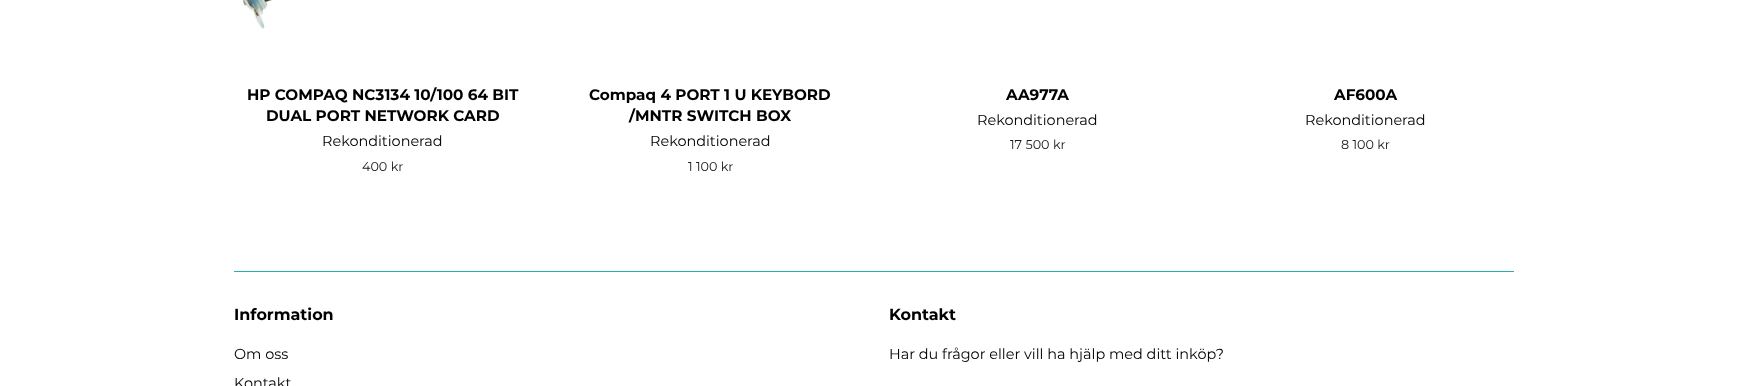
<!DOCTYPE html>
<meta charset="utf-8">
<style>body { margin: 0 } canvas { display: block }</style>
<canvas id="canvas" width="1748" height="386"></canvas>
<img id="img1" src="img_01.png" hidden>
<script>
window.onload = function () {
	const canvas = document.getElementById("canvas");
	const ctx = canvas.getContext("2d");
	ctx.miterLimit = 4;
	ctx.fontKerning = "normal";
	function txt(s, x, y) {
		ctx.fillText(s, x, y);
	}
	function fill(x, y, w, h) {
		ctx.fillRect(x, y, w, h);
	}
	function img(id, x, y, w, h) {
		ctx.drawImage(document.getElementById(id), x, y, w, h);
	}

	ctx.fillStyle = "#FFFFFF";
	fill(0, 0, 1748, 386);
	img("img1", 241, 0, 32, 29);
	ctx.fillStyle = "#2CACAB";
	fill(234, 271, 1280, 1);
	ctx.font = "bold 15.25px Montserrat";
	ctx.fillStyle = "#000000";
	txt("HP COMPAQ NC3134 10/100 64 BIT", 247, 100);
	txt("DUAL PORT NETWORK CARD", 266, 121);
	ctx.font = "14.45px Montserrat";
	txt("Rekonditionerad", 322, 146);
	ctx.font = "12.75px Montserrat";
	ctx.fillStyle = "#1A1A1A";
	txt("400 kr", 362, 171);
	ctx.font = "bold 15.25px Montserrat";
	ctx.fillStyle = "#000000";
	txt("Compaq 4 PORT 1 U KEYBORD", 589, 100);
	txt("/MNTR SWITCH BOX", 629, 121);
	ctx.font = "14.45px Montserrat";
	txt("Rekonditionerad", 650, 146);
	ctx.font = "12.75px Montserrat";
	ctx.fillStyle = "#1A1A1A";
	txt("1 100 kr", 688, 171);
	ctx.font = "bold 15.25px Montserrat";
	ctx.fillStyle = "#000000";
	txt("AA977A", 1006, 100);
	ctx.font = "14.45px Montserrat";
	txt("Rekonditionerad", 977, 125);
	ctx.font = "12.75px Montserrat";
	ctx.fillStyle = "#1A1A1A";
	txt("17 500 kr", 1010, 149);
	ctx.font = "bold 15.25px Montserrat";
	ctx.fillStyle = "#000000";
	txt("AF600A", 1334, 100);
	ctx.font = "14.45px Montserrat";
	txt("Rekonditionerad", 1305, 125);
	ctx.font = "12.75px Montserrat";
	ctx.fillStyle = "#1A1A1A";
	txt("8 100 kr", 1341, 149);
	ctx.font = "bold 16px Montserrat";
	ctx.fillStyle = "#000000";
	txt("Information", 234, 320);
	ctx.font = "14.45px Montserrat";
	txt("Om oss", 234, 359);
	txt("Kontakt", 234, 388);
	ctx.font = "bold 16px Montserrat";
	txt("Kontakt", 889, 320);
	ctx.font = "14.45px Montserrat";
	txt("Har du frågor eller vill ha hjälp med ditt inköp?", 889, 359);
};
</script>
